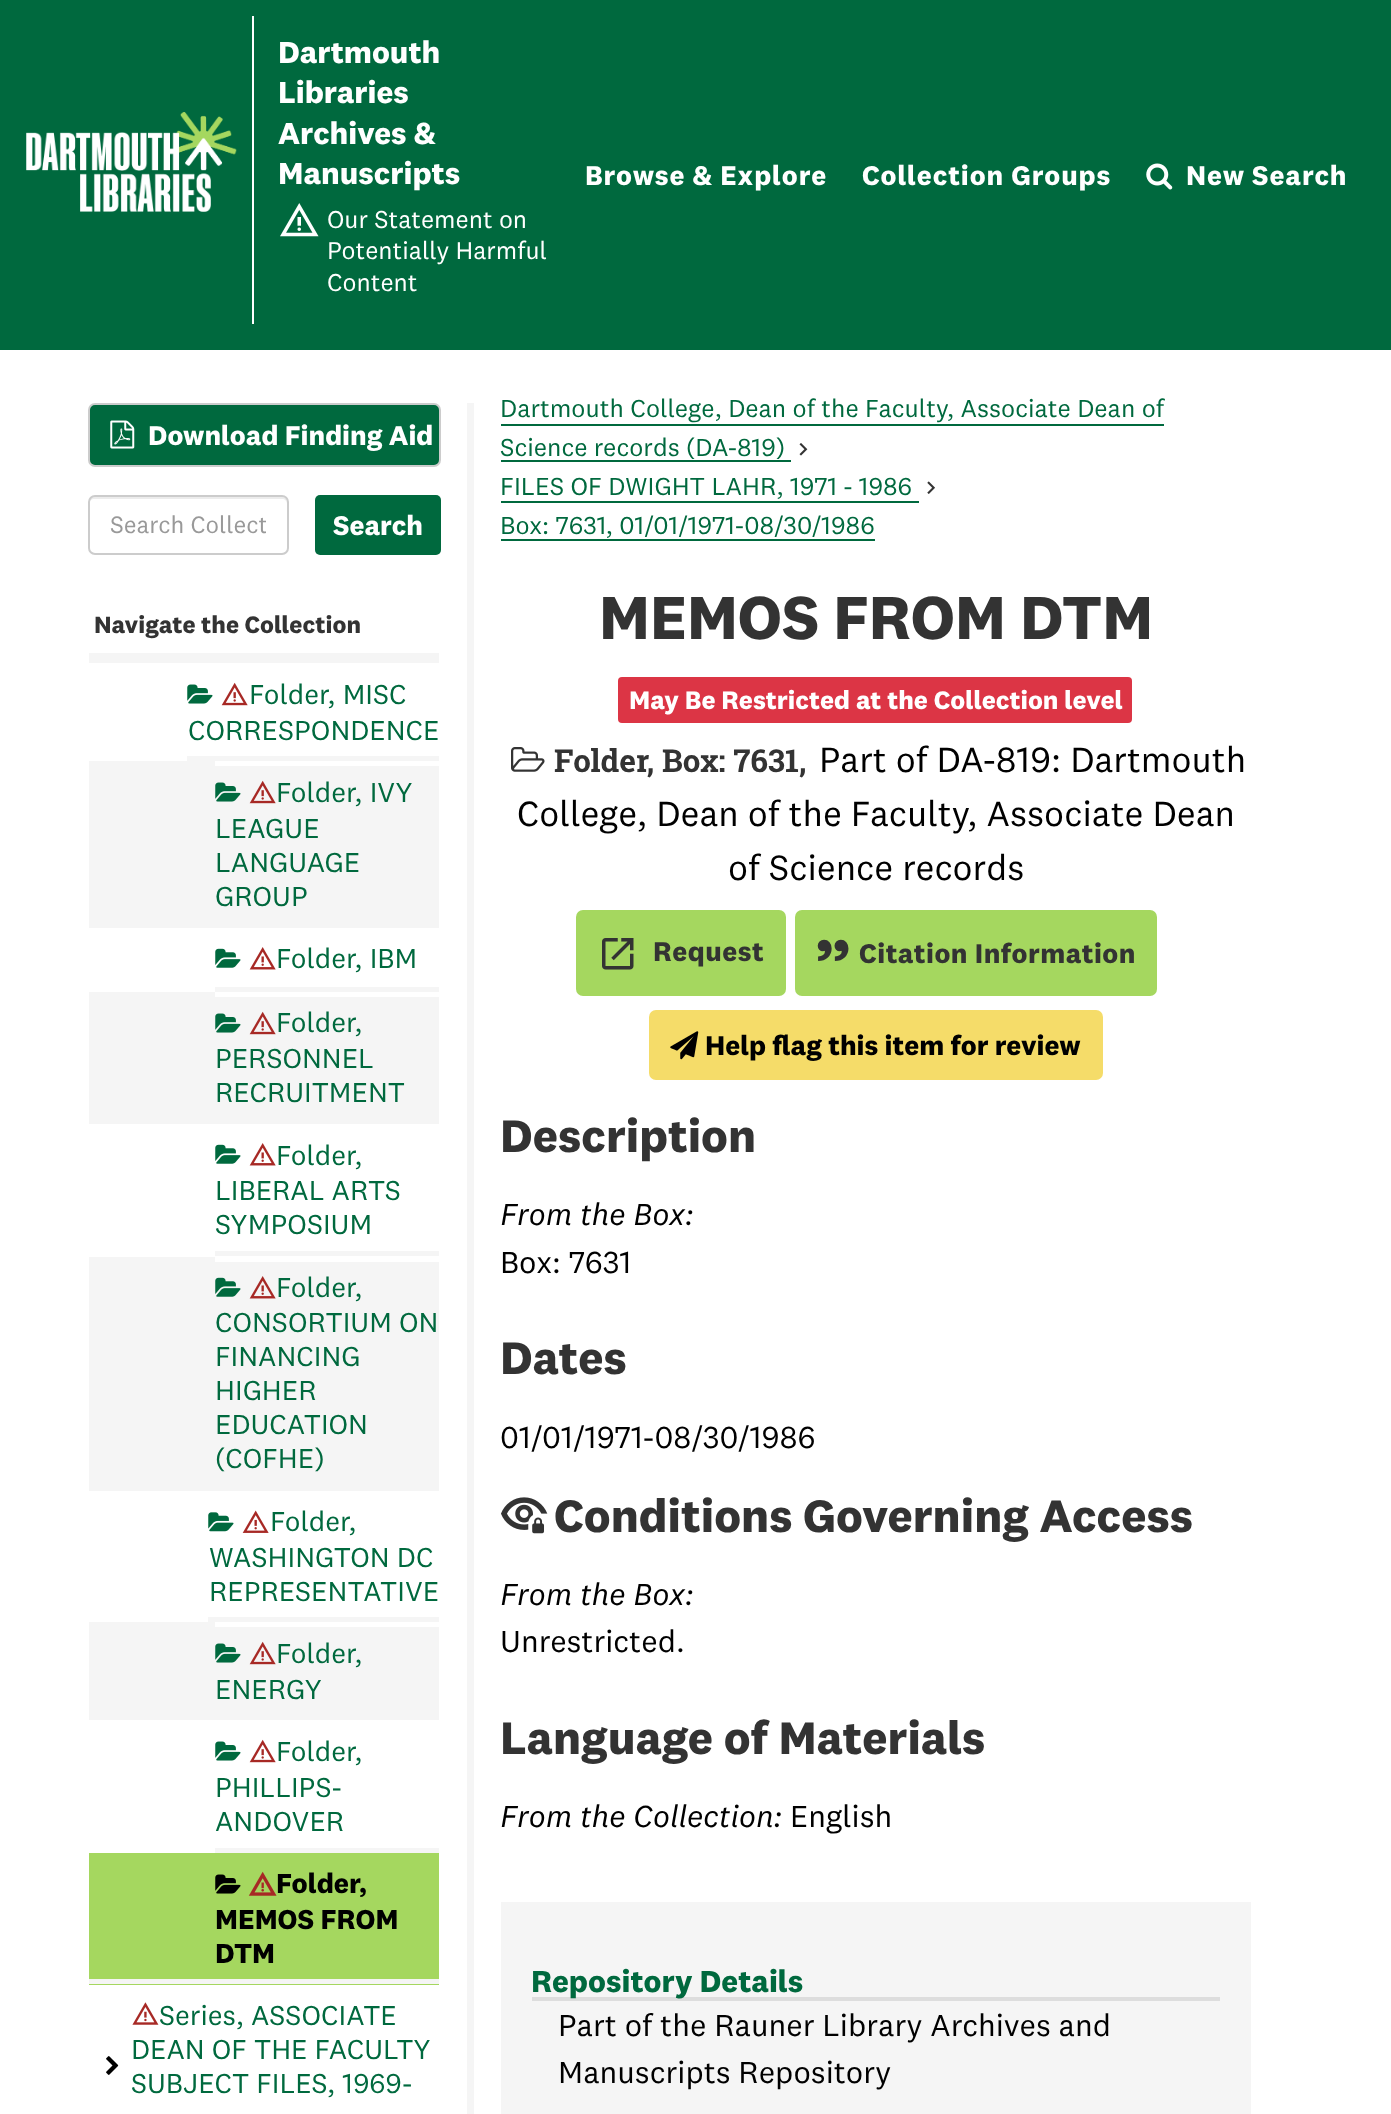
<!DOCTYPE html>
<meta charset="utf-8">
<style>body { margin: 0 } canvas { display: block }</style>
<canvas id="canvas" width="1391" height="2114"></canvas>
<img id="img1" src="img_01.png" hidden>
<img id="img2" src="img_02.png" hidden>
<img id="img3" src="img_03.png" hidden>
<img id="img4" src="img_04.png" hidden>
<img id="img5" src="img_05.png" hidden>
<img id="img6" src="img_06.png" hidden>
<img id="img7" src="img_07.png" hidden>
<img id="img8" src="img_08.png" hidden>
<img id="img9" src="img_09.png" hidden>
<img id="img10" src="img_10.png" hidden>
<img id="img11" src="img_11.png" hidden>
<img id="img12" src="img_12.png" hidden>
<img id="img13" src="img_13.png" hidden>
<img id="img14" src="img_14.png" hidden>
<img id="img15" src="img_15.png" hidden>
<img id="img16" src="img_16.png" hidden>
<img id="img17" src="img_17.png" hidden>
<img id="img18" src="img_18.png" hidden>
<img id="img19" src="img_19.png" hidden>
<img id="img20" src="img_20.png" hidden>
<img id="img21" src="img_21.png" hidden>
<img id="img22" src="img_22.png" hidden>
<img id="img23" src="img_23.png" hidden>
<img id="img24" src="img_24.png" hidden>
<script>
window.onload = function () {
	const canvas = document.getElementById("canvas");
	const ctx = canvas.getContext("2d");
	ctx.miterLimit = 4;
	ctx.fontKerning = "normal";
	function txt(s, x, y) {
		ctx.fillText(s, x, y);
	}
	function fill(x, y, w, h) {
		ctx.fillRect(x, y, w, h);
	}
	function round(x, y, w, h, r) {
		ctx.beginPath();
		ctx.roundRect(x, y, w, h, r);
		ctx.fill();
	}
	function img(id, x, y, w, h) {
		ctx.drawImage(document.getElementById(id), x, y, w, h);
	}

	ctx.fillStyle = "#FFFFFF";
	fill(0, 0, 1391, 2114);
	ctx.fillStyle = "#00693E";
	fill(0, 0, 1391, 350);
	img("img1", 26, 112, 211, 100);
	ctx.fillStyle = "#FFFFFF";
	fill(252, 16, 2, 308);
	img("img2", 280, 203, 39, 34);
	img("img3", 1146, 163, 27, 27);
	ctx.fillStyle = "#00693E";
	ctx.beginPath();
	ctx.roundRect(89, 404, 351, 62, 6);
	ctx.fill();
	ctx.strokeStyle = "#CCCCCC";
	ctx.lineWidth = 2;
	ctx.stroke();
	img("img4", 110, 420, 25, 29);
	ctx.fillStyle = "#ECECEC";
	ctx.beginPath();
	ctx.moveTo(94, 499);
	ctx.lineTo(282, 499);
	ctx.bezierCurveTo(285, 499, 287, 501, 287, 504);
	ctx.lineTo(287, 502);
	ctx.bezierCurveTo(287, 499, 285, 497, 282, 497);
	ctx.lineTo(94, 497);
	ctx.bezierCurveTo(91, 497, 89, 499, 89, 502);
	ctx.lineTo(89, 504);
	ctx.bezierCurveTo(89, 501, 92, 499, 94, 499);
	ctx.closePath();
	ctx.fill();
	ctx.beginPath();
	ctx.roundRect(89, 496, 199, 58, 6);
	ctx.stroke();
	ctx.fillStyle = "#00693E";
	round(315, 495, 126, 60, 5);
	ctx.fillStyle = "#F5F5F5";
	fill(89, 653, 350, 10);
	fill(187, 756, 252, 5);
	img("img5", 187, 684, 26, 20);
	img("img6", 221, 682, 27, 24);
	fill(215, 766, 224, 162);
	fill(89, 761, 126, 167);
	img("img7", 215, 782, 26, 20);
	img("img8", 249, 780, 27, 24);
	fill(215, 987, 224, 5);
	img("img9", 215, 948, 26, 20);
	img("img10", 249, 947, 27, 23);
	fill(215, 997, 224, 127);
	fill(89, 992, 126, 132);
	img("img7", 215, 1013, 26, 20);
	img("img8", 249, 1011, 27, 24);
	fill(215, 1251, 224, 5);
	img("img9", 215, 1144, 26, 20);
	img("img10", 249, 1143, 27, 23);
	fill(215, 1262, 224, 229);
	fill(89, 1257, 126, 234);
	img("img11", 215, 1277, 26, 20);
	img("img12", 249, 1276, 27, 23);
	fill(208, 1617, 231, 5);
	img("img13", 208, 1512, 26, 20);
	img("img14", 242, 1510, 27, 23);
	fill(215, 1627, 224, 93);
	fill(89, 1622, 126, 98);
	img("img7", 215, 1643, 26, 20);
	img("img8", 249, 1641, 27, 24);
	fill(215, 1848, 224, 5);
	img("img5", 215, 1741, 26, 20);
	img("img6", 249, 1739, 27, 24);
	ctx.fillStyle = "#A5D75F";
	fill(89, 1853, 350, 132);
	img("img15", 215, 1874, 26, 20);
	img("img16", 248, 1871, 29, 25);
	ctx.fillStyle = "#F5F5F5";
	fill(89, 1979, 350, 5);
	img("img17", 106, 2056, 13, 19);
	img("img18", 132, 2002, 27, 23);
	fill(467, 403, 7, 1711);
	ctx.fillStyle = "#00693E";
	fill(501, 424, 663, 2);
	fill(501, 460, 290, 2);
	img("img19", 799, 443, 9, 13);
	fill(501, 501, 418, 2);
	img("img20", 927, 481, 8, 13);
	fill(501, 539, 374, 2);
	ctx.fillStyle = "#DC3545";
	round(618, 677, 514, 46, 4);
	img("img21", 511, 747, 34, 25);
	ctx.fillStyle = "#A5D75F";
	round(576, 910, 210, 86, 7);
	img("img22", 602, 938, 32, 32);
	round(795, 910, 362, 86, 7);
	ctx.fillStyle = "#F5DC69";
	round(649, 1010, 454, 70, 7);
	img("img23", 670, 1031, 29, 29);
	img("img24", 501, 1497, 47, 37);
	ctx.fillStyle = "#F5F5F5";
	fill(501, 1902, 750, 212);
	ctx.fillStyle = "#DDDDDD";
	fill(532, 1997, 688, 4);
	ctx.font = "bold 31.5px 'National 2'";
	ctx.fillStyle = "#FFFFFF";
	txt("Dartmouth", 278, 63);
	txt("Libraries", 278, 103);
	txt("Archives &", 278, 144);
	txt("Manuscripts", 278, 184);
	ctx.font = "25.25px 'National 2'";
	txt("Our Statement on", 327, 228);
	txt("Potentially Harmful", 327, 259);
	txt("Content", 327, 291);
	ctx.letterSpacing = "0.9px";
	ctx.font = "bold 28px 'National 2'";
	txt("Browse & Explore", 585, 185);
	txt("Collection Groups", 862, 185);
	txt("New Search", 1186, 185);
	ctx.letterSpacing = "0px";
	txt("Download Finding Aid", 148, 445);
	ctx.save();
	ctx.beginPath();
	ctx.rect(110, 509, 156, 32);
	ctx.clip();
	ctx.font = "24.5px 'National 2'";
	ctx.fillStyle = "#999999";
	txt("Search Collect", 110, 533);
	ctx.restore();
	txt("Search", 333, 535);
	ctx.font = "bold 24.5px 'National 2'";
	ctx.fillStyle = "#333333";
	txt("Navigate the Collection", 94, 633);
	ctx.font = "28.4px 'National 2'";
	ctx.fillStyle = "#00693E";
	txt("Folder, MISC", 249, 704);
	txt("CORRESPONDENCE", 188, 740);
	txt("Folder, IVY", 276, 802);
	txt("LEAGUE", 215, 838);
	txt("LANGUAGE", 215, 872);
	txt("GROUP", 215, 906);
	txt("Folder, IBM", 276, 968);
	txt("Folder,", 276, 1032);
	txt("PERSONNEL", 215, 1068);
	txt("RECRUITMENT", 215, 1102);
	txt("Folder,", 276, 1165);
	txt("LIBERAL ARTS", 215, 1200);
	txt("SYMPOSIUM", 215, 1234);
	txt("Folder,", 276, 1297);
	txt("CONSORTIUM ON", 215, 1332);
	txt("FINANCING", 215, 1366);
	txt("HIGHER", 215, 1400);
	txt("EDUCATION", 215, 1434);
	txt("(COFHE)", 215, 1468);
	txt("Folder,", 270, 1531);
	txt("WASHINGTON DC", 209, 1567);
	txt("REPRESENTATIVE", 209, 1601);
	txt("Folder,", 276, 1663);
	txt("ENERGY", 215, 1699);
	txt("Folder,", 276, 1761);
	txt("PHILLIPS-", 215, 1797);
	txt("ANDOVER", 215, 1831);
	ctx.font = "bold 28.4px 'National 2'";
	ctx.fillStyle = "#000000";
	txt("Folder,", 276, 1893);
	txt("MEMOS FROM", 215, 1929);
	txt("DTM", 215, 1963);
	ctx.font = "28.4px 'National 2'";
	ctx.fillStyle = "#00693E";
	txt("Series, ASSOCIATE", 159, 2025);
	txt("DEAN OF THE FACULTY", 131, 2059);
	txt("SUBJECT FILES, 1969-", 131, 2093);
	ctx.font = "25.5px 'National 2'";
	txt("Dartmouth College, Dean of the Faculty, Associate Dean of", 500, 417);
	txt("Science records (DA-819)", 500, 456);
	txt("FILES OF DWIGHT LAHR, 1971 - 1986", 500, 495);
	txt("Box: 7631, 01/01/1971-08/30/1986", 500, 534);
	ctx.font = "bold 63px 'National 2'";
	ctx.fillStyle = "#333333";
	txt("MEMOS FROM DTM", 599, 639);
	ctx.font = "bold 26.25px 'National 2'";
	ctx.fillStyle = "#FFFFFF";
	txt("May Be Restricted at the Collection level", 629, 709);
	ctx.font = "bold 31.5px Roboto Slab";
	ctx.fillStyle = "#333333";
	txt("Folder, Box: 7631,", 554, 772);
	ctx.font = "36.25px 'National 2'";
	ctx.fillStyle = "#000000";
	txt("Part of DA-819: Dartmouth", 819, 772);
	txt("College, Dean of the Faculty, Associate Dean", 517, 826);
	txt("of Science records", 728, 880);
	ctx.letterSpacing = "0.5px";
	ctx.font = "bold 28px 'National 2'";
	ctx.fillStyle = "#333333";
	txt("Request", 653, 961);
	ctx.font = "bold 70px 'National 2'";
	txt("”", 815, 991);
	ctx.font = "bold 28px 'National 2'";
	txt("Citation Information", 859, 963);
	ctx.letterSpacing = "0px";
	ctx.fillStyle = "#000000";
	txt("Help flag this item for review", 705, 1055);
	ctx.font = "bold 47.25px 'National 2'";
	ctx.fillStyle = "#333333";
	txt("Description", 500, 1152);
	ctx.font = "italic 31.5px 'National 2'";
	ctx.fillStyle = "#000000";
	txt("From the Box:", 500, 1225);
	ctx.font = "31.5px 'National 2'";
	txt("Box: 7631", 500, 1273);
	ctx.font = "bold 47.25px 'National 2'";
	ctx.fillStyle = "#333333";
	txt("Dates", 500, 1374);
	ctx.font = "31.5px 'National 2'";
	ctx.fillStyle = "#000000";
	txt("01/01/1971-08/30/1986", 500, 1448);
	ctx.font = "bold 47.25px 'National 2'";
	ctx.fillStyle = "#333333";
	txt("Conditions Governing Access", 554, 1532);
	ctx.font = "italic 31.5px 'National 2'";
	ctx.fillStyle = "#000000";
	txt("From the Box:", 500, 1605);
	ctx.font = "31.5px 'National 2'";
	txt("Unrestricted.", 500, 1652);
	ctx.font = "bold 47.25px 'National 2'";
	ctx.fillStyle = "#333333";
	txt("Language of Materials", 500, 1754);
	ctx.font = "italic 31.5px 'National 2'";
	ctx.fillStyle = "#000000";
	txt("From the Collection:", 500, 1827);
	ctx.font = "31.5px 'National 2'";
	txt("English", 790, 1827);
	ctx.font = "bold 31.5px 'National 2'";
	ctx.fillStyle = "#00693E";
	txt("Repository Details", 531, 1992);
	ctx.font = "31.5px 'National 2'";
	ctx.fillStyle = "#000000";
	txt("Part of the Rauner Library Archives and", 558, 2036);
	txt("Manuscripts Repository", 558, 2083);
};
</script>
